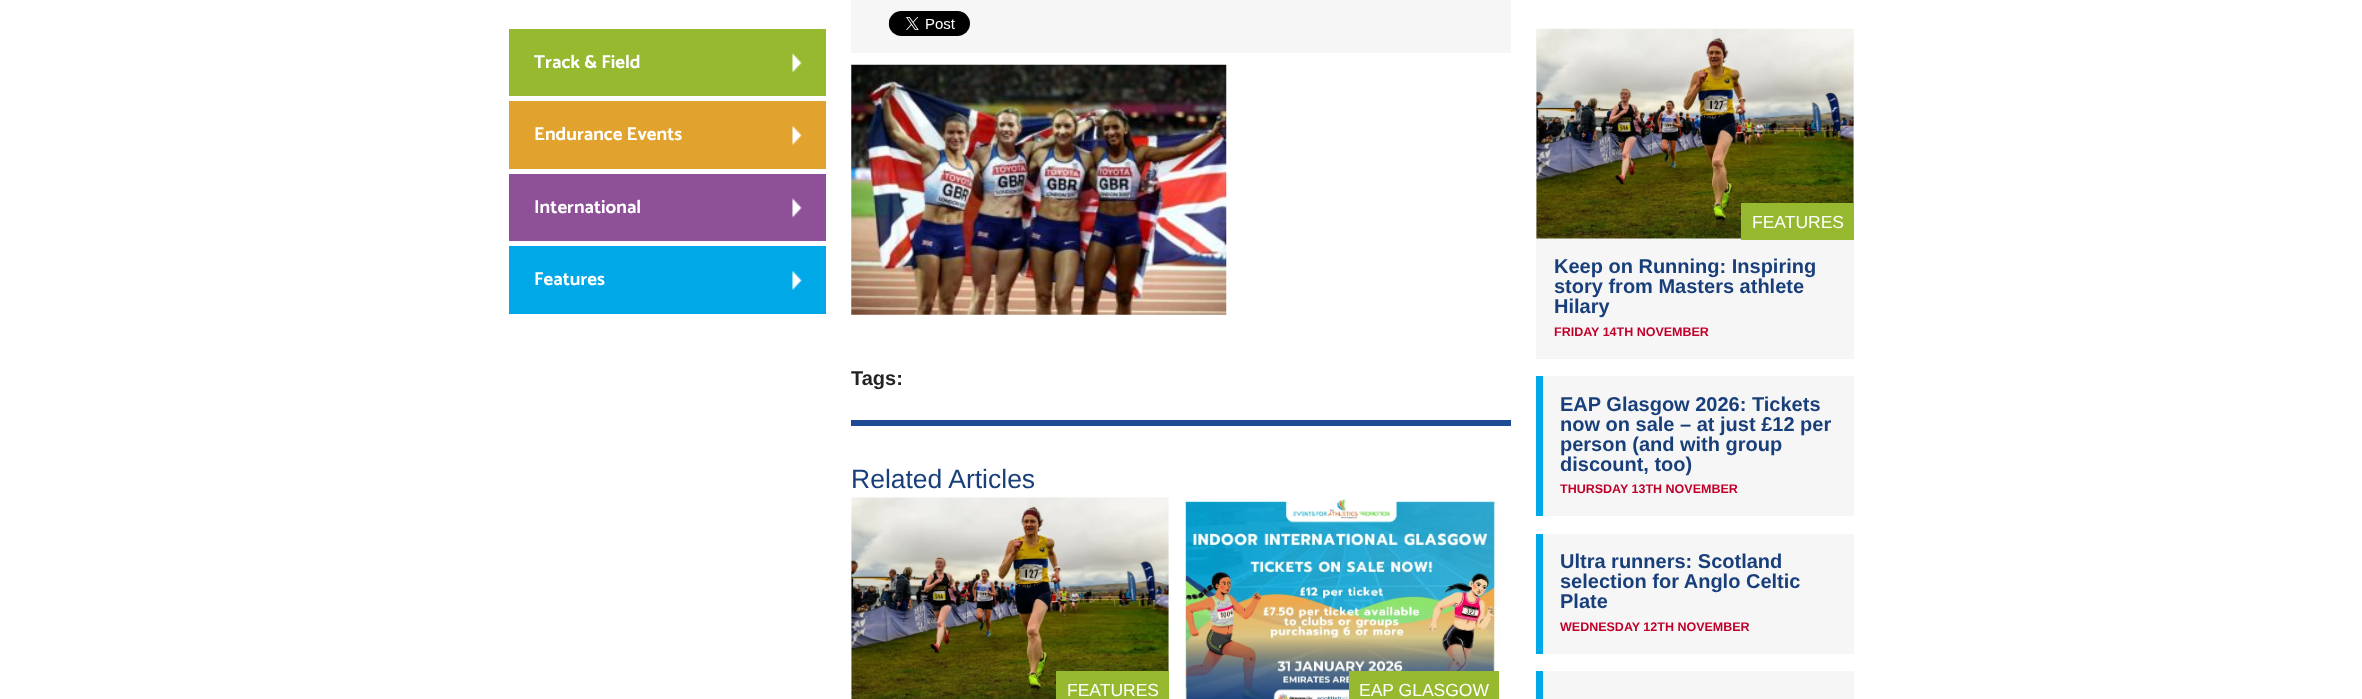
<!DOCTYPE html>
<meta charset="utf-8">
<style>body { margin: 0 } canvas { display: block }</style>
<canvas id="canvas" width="2362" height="699"></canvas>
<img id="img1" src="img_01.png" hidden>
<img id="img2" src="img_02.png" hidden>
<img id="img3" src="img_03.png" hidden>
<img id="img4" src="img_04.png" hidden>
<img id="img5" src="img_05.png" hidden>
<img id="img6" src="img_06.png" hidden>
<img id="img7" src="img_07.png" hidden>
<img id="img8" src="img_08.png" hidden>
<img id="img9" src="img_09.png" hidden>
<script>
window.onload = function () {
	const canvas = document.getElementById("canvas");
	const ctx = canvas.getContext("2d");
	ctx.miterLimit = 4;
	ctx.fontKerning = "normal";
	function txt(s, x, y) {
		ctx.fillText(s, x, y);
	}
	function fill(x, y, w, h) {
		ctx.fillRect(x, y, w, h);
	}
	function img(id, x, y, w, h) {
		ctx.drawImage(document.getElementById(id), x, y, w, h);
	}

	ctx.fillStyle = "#FFFFFF";
	fill(0, 0, 2362, 699);
	ctx.fillStyle = "#96B92F";
	fill(509, 29, 317, 67);
	img("img1", 792, 53, 10, 20);
	ctx.fillStyle = "#E1A32E";
	fill(509, 101, 317, 68);
	img("img2", 792, 126, 10, 19);
	ctx.fillStyle = "#8E5198";
	fill(509, 174, 317, 67);
	img("img3", 792, 198, 10, 20);
	ctx.fillStyle = "#00A8E8";
	fill(509, 246, 317, 68);
	img("img4", 792, 271, 10, 19);
	ctx.fillStyle = "#F6F6F6";
	fill(851, 0, 660, 53);
	img("img5", 888, 11, 82, 25);
	img("img6", 851, 64, 376, 251);
	ctx.fillStyle = "#1E4B94";
	fill(851, 420, 660, 6);
	img("img7", 851, 497, 318, 202);
	ctx.fillStyle = "#96B92F";
	fill(1056, 671, 113, 28);
	img("img8", 1184, 499, 314, 200);
	fill(1349, 671, 150, 28);
	ctx.fillStyle = "#F6F6F6";
	fill(1536, 29, 318, 330);
	img("img9", 1536, 28, 318, 211);
	ctx.fillStyle = "#96B92F";
	fill(1741, 203, 113, 37);
	ctx.fillStyle = "#F6F6F6";
	fill(1543, 376, 311, 140);
	ctx.fillStyle = "#00A8E8";
	fill(1536, 376, 7, 140);
	ctx.fillStyle = "#F6F6F6";
	fill(1543, 534, 311, 120);
	ctx.fillStyle = "#00A8E8";
	fill(1536, 534, 7, 120);
	ctx.fillStyle = "#F6F6F6";
	fill(1543, 671, 311, 28);
	ctx.fillStyle = "#00A8E8";
	fill(1536, 671, 7, 28);
	ctx.font = "bold 18.75px Catamaran";
	ctx.fillStyle = "#FFFFFF";
	txt("Track & Field", 534, 68);
	txt("Endurance Events", 534, 140);
	txt("International", 534, 213);
	txt("Features", 534, 285);
	ctx.font = "bold 20px Liberation Sans";
	ctx.fillStyle = "#222222";
	txt("Tags:", 851, 385);
	ctx.font = "26.5px Liberation Sans";
	ctx.fillStyle = "#193F7B";
	txt("Related Articles", 851, 488);
	ctx.font = "17.5px Liberation Sans";
	ctx.fillStyle = "#FFFFFF";
	txt("FEATURES", 1067, 696);
	txt("EAP GLASGOW", 1359, 696);
	txt("FEATURES", 1752, 228);
	ctx.font = "bold 20px Liberation Sans";
	ctx.fillStyle = "#193F7B";
	txt("Keep on Running: Inspiring", 1554, 273);
	txt("story from Masters athlete", 1554, 293);
	txt("Hilary", 1554, 313);
	ctx.font = "bold 12.5px Liberation Sans";
	ctx.fillStyle = "#C0002A";
	txt("FRIDAY 14TH NOVEMBER", 1554, 336);
	ctx.font = "bold 20px Liberation Sans";
	ctx.fillStyle = "#193F7B";
	txt("EAP Glasgow 2026: Tickets", 1560, 411);
	txt("now on sale – at just £12 per", 1560, 431);
	txt("person (and with group", 1560, 451);
	txt("discount, too)", 1560, 471);
	ctx.font = "bold 12.5px Liberation Sans";
	ctx.fillStyle = "#C0002A";
	txt("THURSDAY 13TH NOVEMBER", 1560, 493);
	ctx.font = "bold 20px Liberation Sans";
	ctx.fillStyle = "#193F7B";
	txt("Ultra runners: Scotland", 1560, 568);
	txt("selection for Anglo Celtic", 1560, 588);
	txt("Plate", 1560, 608);
	ctx.font = "bold 12.5px Liberation Sans";
	ctx.fillStyle = "#C0002A";
	txt("WEDNESDAY 12TH NOVEMBER", 1560, 631);
};
</script>
